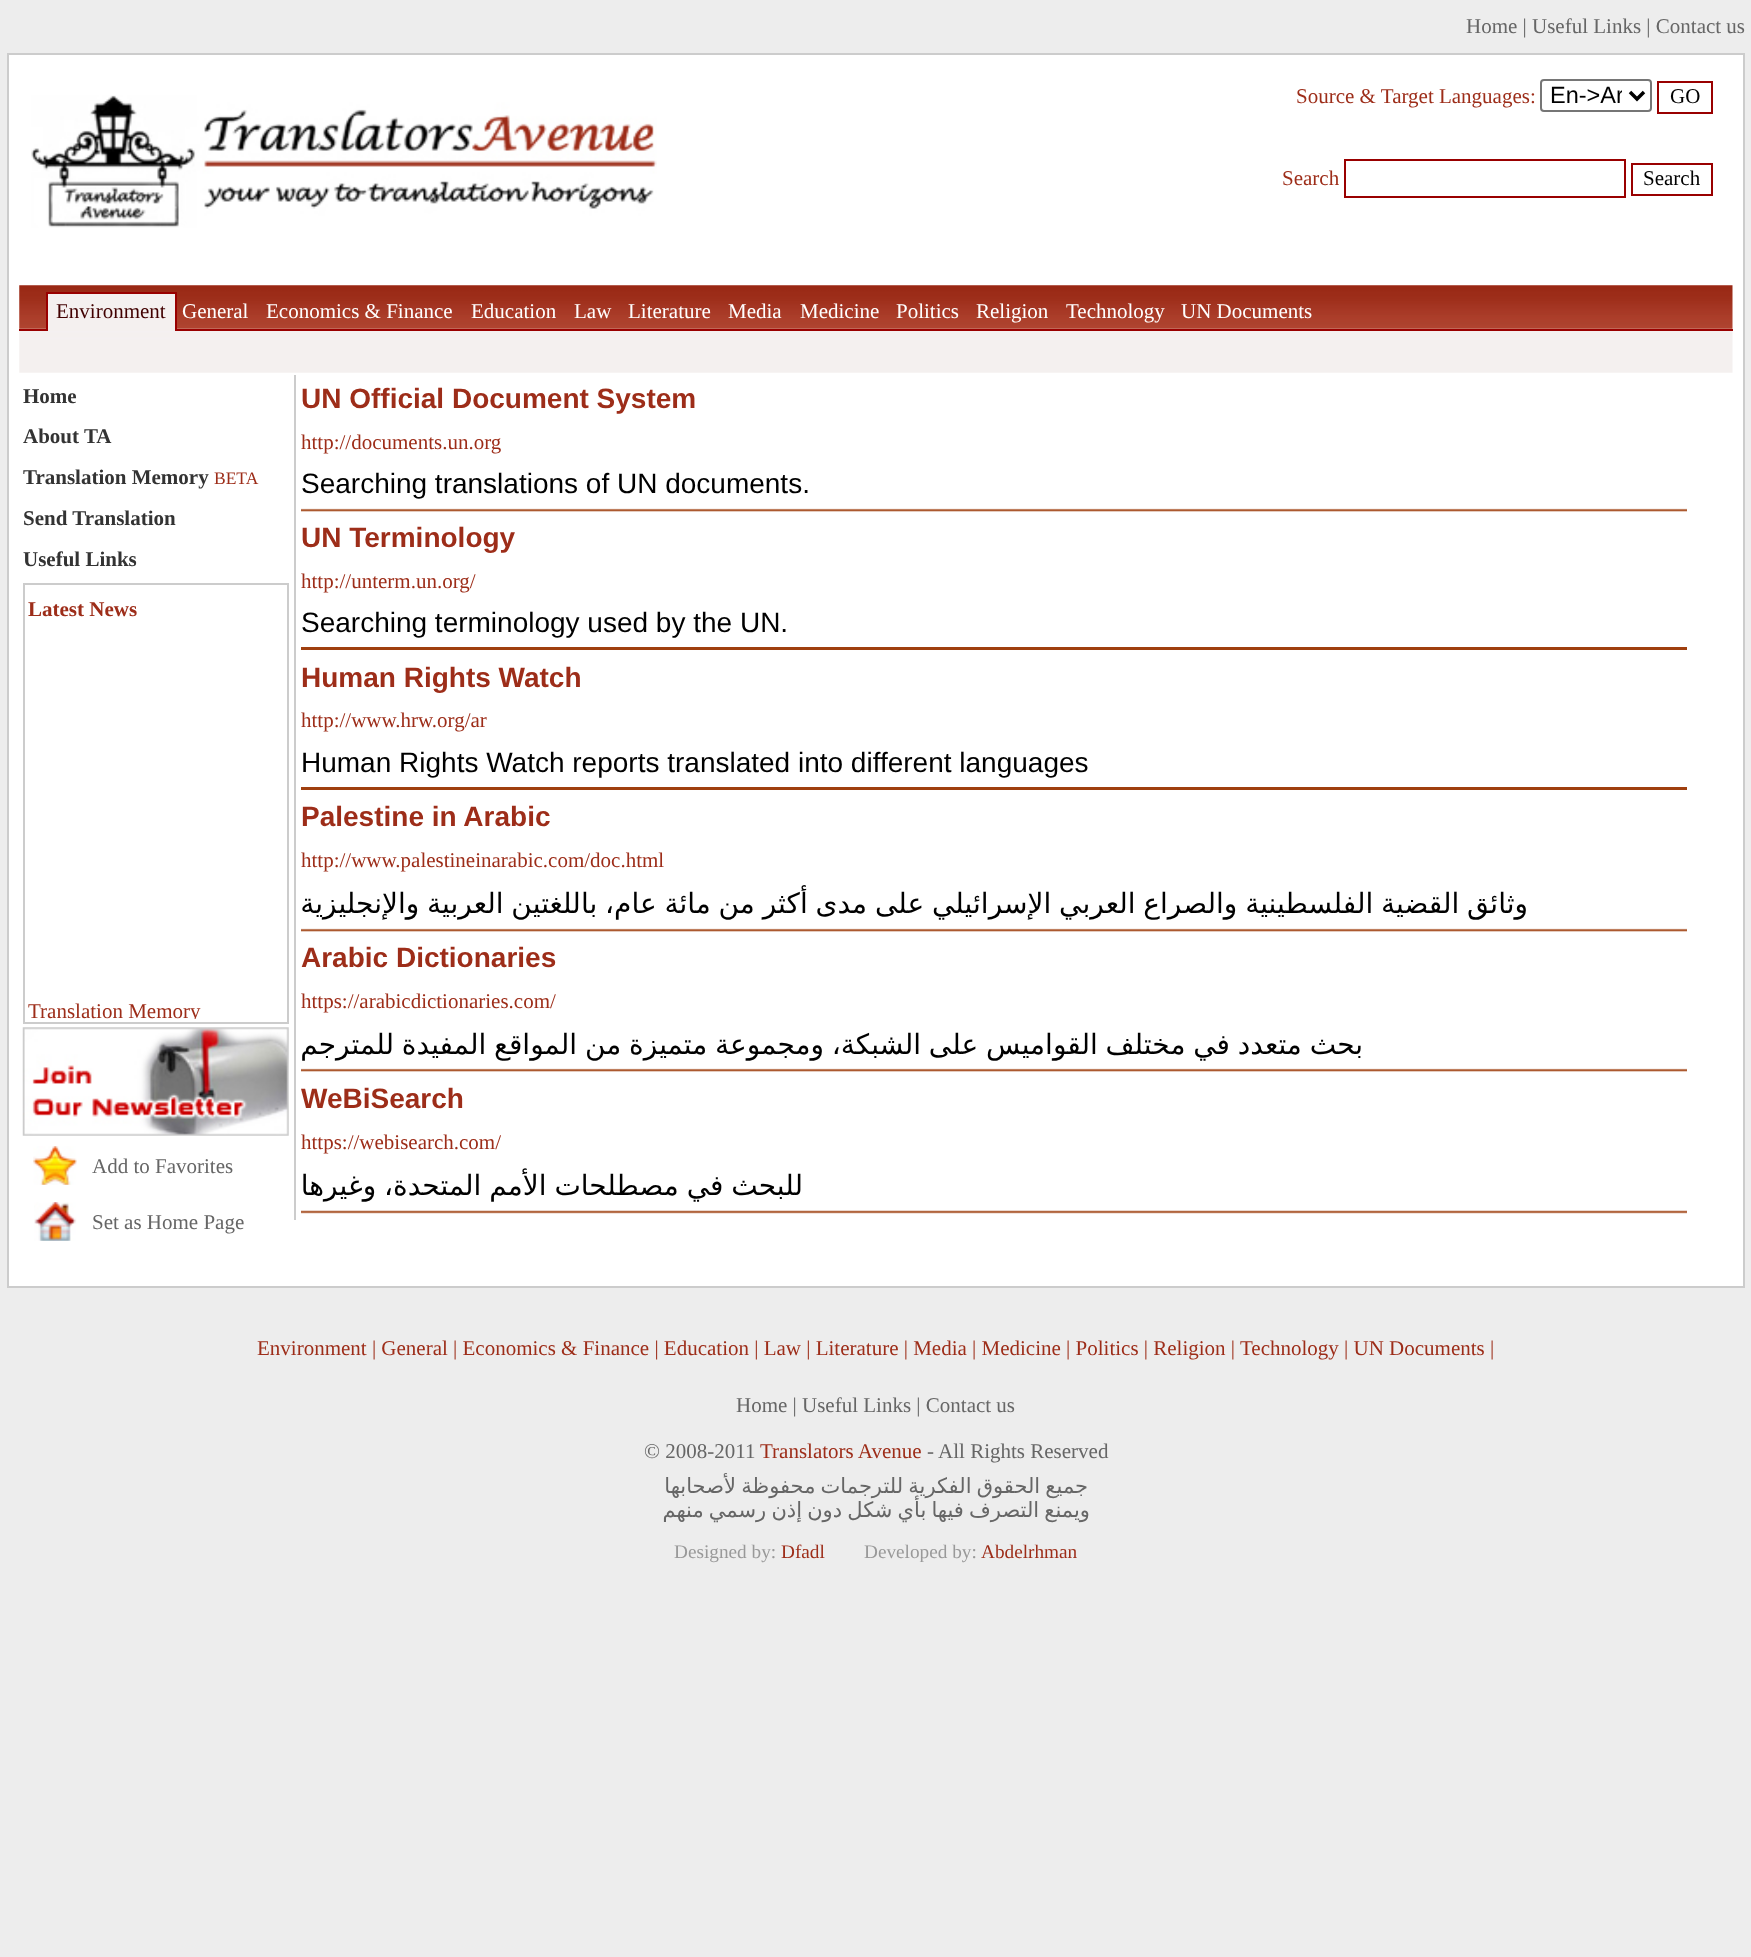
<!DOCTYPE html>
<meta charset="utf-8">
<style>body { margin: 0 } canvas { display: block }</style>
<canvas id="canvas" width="1751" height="1957"></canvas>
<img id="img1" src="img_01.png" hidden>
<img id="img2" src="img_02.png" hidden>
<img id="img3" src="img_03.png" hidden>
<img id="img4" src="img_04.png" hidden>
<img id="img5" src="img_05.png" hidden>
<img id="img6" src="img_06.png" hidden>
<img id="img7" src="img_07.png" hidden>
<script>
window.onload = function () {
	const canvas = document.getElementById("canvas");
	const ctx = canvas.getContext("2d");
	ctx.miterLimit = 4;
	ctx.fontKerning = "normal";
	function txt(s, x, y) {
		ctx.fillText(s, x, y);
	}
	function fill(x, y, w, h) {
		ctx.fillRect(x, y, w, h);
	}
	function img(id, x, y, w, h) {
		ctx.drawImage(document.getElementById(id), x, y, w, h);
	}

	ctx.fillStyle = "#EDEDED";
	fill(0, 0, 1751, 1957);
	ctx.fillStyle = "#FFFFFF";
	fill(9, 55, 1734, 1231);
	ctx.fillStyle = "#CCCCCC";
	fill(7, 53, 1738, 2);
	fill(1743, 53, 2, 1235);
	fill(7, 1286, 1738, 2);
	fill(7, 53, 2, 1235);
	img("img1", 31, 95, 626, 133);
	ctx.beginPath();
	ctx.roundRect(1541, 80, 110, 31, 3);
	ctx.strokeStyle = "#767676";
	ctx.lineWidth = 2;
	ctx.stroke();
	ctx.beginPath();
	ctx.moveTo(1630, 92);
	ctx.lineTo(1637, 99);
	ctx.lineTo(1644, 92);
	ctx.strokeStyle = "#000000";
	ctx.lineWidth = 3.5;
	ctx.stroke();
	ctx.strokeStyle = "#990000";
	ctx.lineWidth = 2;
	ctx.strokeRect(1658, 82, 54, 31);
	ctx.strokeRect(1345, 160, 280, 37);
	ctx.strokeRect(1632, 164, 80, 31);
	img("img2", 19, 285, 1714, 88);
	ctx.fillStyle = "#990000";
	fill(19, 329, 1714, 2);
	ctx.fillStyle = "#F4F0EF";
	fill(48, 294, 127, 37);
	ctx.fillStyle = "#990000";
	fill(46, 292, 131, 2);
	fill(175, 292, 2, 39);
	fill(46, 292, 2, 39);
	ctx.fillStyle = "#CCCCCC";
	fill(23, 583, 266, 2);
	fill(287, 583, 2, 441);
	fill(23, 1022, 266, 2);
	fill(23, 583, 2, 441);
	img("img3", 22, 1027, 267, 109);
	img("img4", 33, 1146, 44, 39);
	img("img5", 34, 1202, 43, 39);
	fill(294, 375, 2, 845);
	img("img6", 301, 508, 1386, 4);
	ctx.fillStyle = "#9F3F0F";
	fill(301, 647, 1386, 3);
	fill(301, 787, 1386, 3);
	img("img6", 301, 928, 1386, 4);
	img("img6", 301, 1068, 1386, 4);
	img("img7", 301, 1210, 1386, 4);
	ctx.font = "21px Liberation Serif";
	ctx.fillStyle = "#666666";
	txt("Home | Useful Links | Contact us", 1466, 33);
	ctx.fillStyle = "#9D2D19";
	txt("Source & Target Languages:", 1296, 103);
	ctx.save();
	ctx.beginPath();
	ctx.rect(1549, 81, 73, 29);
	ctx.clip();
	ctx.font = "23.5px Liberation Sans";
	ctx.fillStyle = "#000000";
	txt("En->Ar", 1550, 103);
	ctx.restore();
	ctx.fillStyle = "#000000";
	txt("GO", 1670, 103);
	ctx.fillStyle = "#9D2D19";
	txt("Search", 1282, 185);
	ctx.fillStyle = "#000000";
	txt("Search", 1643, 185);
	ctx.fillStyle = "#410000";
	txt("Environment", 56, 318);
	ctx.fillStyle = "#FFFFFF";
	txt("General", 182, 318);
	txt("Economics & Finance", 266, 318);
	txt("Education", 471, 318);
	txt("Law", 574, 318);
	txt("Literature", 628, 318);
	txt("Media", 728, 318);
	txt("Medicine", 800, 318);
	txt("Politics", 896, 318);
	txt("Religion", 976, 318);
	txt("Technology", 1066, 318);
	txt("UN Documents", 1181, 318);
	ctx.font = "bold 21px Liberation Serif";
	ctx.fillStyle = "#333333";
	txt("Home", 23, 403);
	txt("About TA", 23, 443);
	txt("Translation Memory", 23, 484);
	ctx.font = "17.5px Liberation Serif";
	ctx.fillStyle = "#9D2D19";
	txt("BETA", 214, 484);
	ctx.font = "bold 21px Liberation Serif";
	ctx.fillStyle = "#333333";
	txt("Send Translation", 23, 525);
	txt("Useful Links", 23, 566);
	ctx.fillStyle = "#9D2D19";
	txt("Latest News", 28, 616);
	ctx.save();
	ctx.beginPath();
	ctx.rect(28, 639, 256, 380);
	ctx.clip();
	ctx.font = "21px Liberation Serif";
	txt("Translation Memory", 28, 1018);
	ctx.restore();
	ctx.font = "21px Liberation Serif";
	ctx.fillStyle = "#666666";
	txt("Add to Favorites", 92, 1173);
	txt("Set as Home Page", 92, 1229);
	ctx.font = "bold 28px Liberation Sans";
	ctx.fillStyle = "#9D2D19";
	txt("UN Official Document System", 301, 408);
	ctx.font = "21px Liberation Serif";
	txt("http://documents.un.org", 301, 449);
	ctx.font = "28px Liberation Sans";
	ctx.fillStyle = "#000000";
	txt("Searching translations of UN documents.", 301, 493);
	ctx.font = "bold 28px Liberation Sans";
	ctx.fillStyle = "#9D2D19";
	txt("UN Terminology", 301, 547);
	ctx.font = "21px Liberation Serif";
	txt("http://unterm.un.org/", 301, 588);
	ctx.font = "28px Liberation Sans";
	ctx.fillStyle = "#000000";
	txt("Searching terminology used by the UN.", 301, 632);
	ctx.font = "bold 28px Liberation Sans";
	ctx.fillStyle = "#9D2D19";
	txt("Human Rights Watch", 301, 687);
	ctx.font = "21px Liberation Serif";
	txt("http://www.hrw.org/ar", 301, 727);
	ctx.font = "28px Liberation Sans";
	ctx.fillStyle = "#000000";
	txt("Human Rights Watch reports translated into different languages", 301, 772);
	ctx.font = "bold 28px Liberation Sans";
	ctx.fillStyle = "#9D2D19";
	txt("Palestine in Arabic", 301, 826);
	ctx.font = "21px Liberation Serif";
	txt("http://www.palestineinarabic.com/doc.html", 301, 867);
	ctx.wordSpacing = "-1.1px";
	ctx.direction = "rtl";
	ctx.font = "28px DejaVu Sans";
	ctx.fillStyle = "#000000";
	txt("وثائق القضية الفلسطينية والصراع العربي الإسرائيلي على مدى أكثر من مائة عام، باللغتين العربية والإنجليزية", 1528, 913);
	ctx.wordSpacing = "0px";
	ctx.direction = "ltr";
	ctx.font = "bold 28px Liberation Sans";
	ctx.fillStyle = "#9D2D19";
	txt("Arabic Dictionaries", 301, 967);
	ctx.font = "21px Liberation Serif";
	txt("https://arabicdictionaries.com/", 301, 1008);
	ctx.wordSpacing = "-1.1px";
	ctx.direction = "rtl";
	ctx.font = "28px DejaVu Sans";
	ctx.fillStyle = "#000000";
	txt("بحث متعدد في مختلف القواميس على الشبكة، ومجموعة متميزة من المواقع المفيدة للمترجم", 1363, 1054);
	ctx.wordSpacing = "0px";
	ctx.direction = "ltr";
	ctx.font = "bold 28px Liberation Sans";
	ctx.fillStyle = "#9D2D19";
	txt("WeBiSearch", 301, 1108);
	ctx.font = "21px Liberation Serif";
	txt("https://webisearch.com/", 301, 1149);
	ctx.wordSpacing = "-1.1px";
	ctx.direction = "rtl";
	ctx.font = "28px DejaVu Sans";
	ctx.fillStyle = "#000000";
	txt("للبحث في مصطلحات الأمم المتحدة، وغيرها", 803, 1195);
	ctx.wordSpacing = "0px";
	ctx.direction = "ltr";
	ctx.font = "21px Liberation Serif";
	ctx.fillStyle = "#9D2D19";
	txt("Environment | General | Economics & Finance | Education | Law | Literature | Media | Medicine | Politics | Religion |", 257, 1355);
	txt("Technology | UN Documents |", 1240, 1355);
	ctx.fillStyle = "#666666";
	txt("Home | Useful Links | Contact us", 736, 1412);
	txt("© 2008-2011", 644, 1458);
	ctx.fillStyle = "#9D2D19";
	txt("Translators Avenue", 760, 1458);
	ctx.fillStyle = "#666666";
	txt("- All Rights Reserved", 927, 1458);
	ctx.wordSpacing = "-1.5px";
	ctx.direction = "rtl";
	ctx.font = "21px DejaVu Sans";
	txt("جميع الحقوق الفكرية للترجمات محفوظة لأصحابها", 1088, 1493);
	txt("ويمنع التصرف فيها بأي شكل دون إذن رسمي منهم", 1090, 1517);
	ctx.wordSpacing = "0px";
	ctx.direction = "ltr";
	ctx.font = "19.25px Liberation Serif";
	ctx.fillStyle = "#999999";
	txt("Designed by:", 674, 1558);
	ctx.fillStyle = "#9D2D19";
	txt("Dfadl", 781, 1558);
	ctx.fillStyle = "#999999";
	txt("Developed by:", 864, 1558);
	ctx.fillStyle = "#9D2D19";
	txt("Abdelrhman", 981, 1558);
};
</script>
